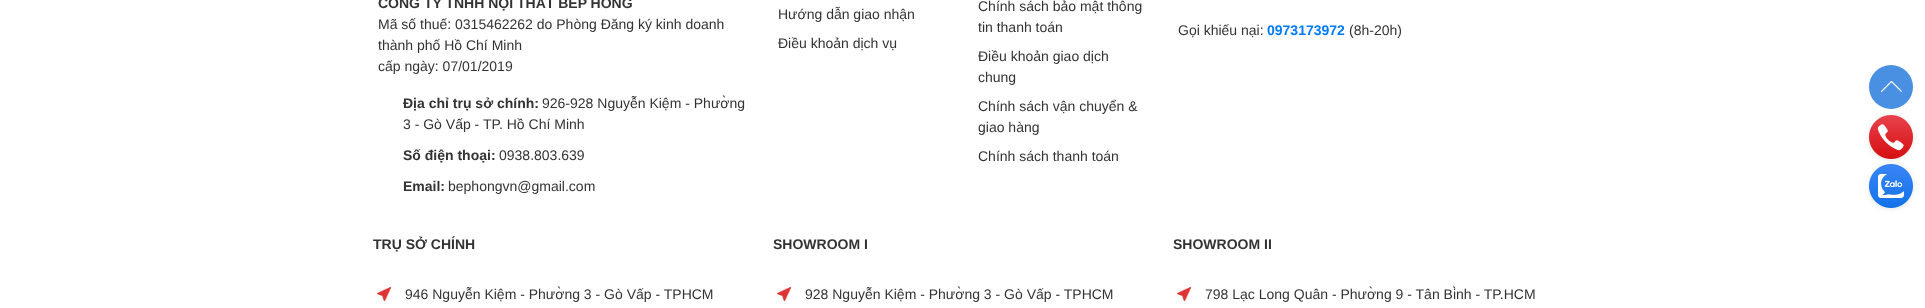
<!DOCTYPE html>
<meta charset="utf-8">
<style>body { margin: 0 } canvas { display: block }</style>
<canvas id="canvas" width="1925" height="308"></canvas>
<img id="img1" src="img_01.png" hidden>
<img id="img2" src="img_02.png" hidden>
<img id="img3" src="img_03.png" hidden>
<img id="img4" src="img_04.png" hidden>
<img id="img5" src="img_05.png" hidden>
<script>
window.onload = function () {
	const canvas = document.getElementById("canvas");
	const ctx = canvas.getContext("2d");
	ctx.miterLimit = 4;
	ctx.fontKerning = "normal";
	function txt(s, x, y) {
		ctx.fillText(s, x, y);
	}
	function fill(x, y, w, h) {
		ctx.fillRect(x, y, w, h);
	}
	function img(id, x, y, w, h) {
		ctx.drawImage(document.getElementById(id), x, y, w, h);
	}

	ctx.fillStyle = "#FFFFFF";
	fill(0, 0, 1925, 308);
	img("img1", 377, 287, 14, 14);
	img("img2", 777, 287, 14, 14);
	img("img1", 1177, 287, 14, 14);
	ctx.fillStyle = "#4A90E2";
	ctx.beginPath();
	ctx.arc(1891, 87, 22, 0, Math.PI * 2);
	ctx.fill();
	img("img3", 1881, 81, 21, 11);
	ctx.fillStyle = "rgba(0, 0, 0, 0.11)";
	ctx.filter = "blur(2.5px)";
	ctx.beginPath();
	ctx.roundRect(1869, 116, 44, 44, 22);
	ctx.fill();
	ctx.filter = "none";
	img("img4", 1869, 115, 44, 44);
	ctx.filter = "blur(2.5px)";
	ctx.beginPath();
	ctx.roundRect(1869, 165, 44, 44, 22);
	ctx.fill();
	ctx.filter = "none";
	img("img5", 1869, 164, 44, 44);
	ctx.font = "bold 14px Liberation Sans";
	ctx.fillStyle = "#333333";
	txt("CÔNG TY TNHH NỘI THẤT BẾP HỒNG", 378, 8);
	ctx.font = "14px Liberation Sans";
	txt("Mã số thuế: 0315462262 do Phòng Đăng ký kinh doanh", 378, 29);
	txt("thành phố Hồ Chí Minh", 378, 50);
	txt("cấp ngày: 07/01/2019", 378, 71);
	ctx.font = "bold 14px Liberation Sans";
	txt("Địa chỉ trụ sở chính:", 403, 108);
	ctx.font = "14px Liberation Sans";
	txt("926-928 Nguyễn Kiệm - Phường", 542, 108);
	txt("3 - Gò Vấp - TP. Hồ Chí Minh", 403, 129);
	ctx.font = "bold 14px Liberation Sans";
	txt("Số điện thoại:", 403, 160);
	ctx.font = "14px Liberation Sans";
	txt("0938.803.639", 499, 160);
	ctx.font = "bold 14px Liberation Sans";
	txt("Email:", 403, 191);
	ctx.font = "14px Liberation Sans";
	txt("bephongvn@gmail.com", 448, 191);
	txt("Hướng dẫn giao nhận", 778, 19);
	txt("Điều khoản dịch vụ", 778, 48);
	txt("Chính sách bảo mật thông", 978, 11);
	txt("tin thanh toán", 978, 32);
	txt("Điều khoản giao dịch", 978, 61);
	txt("chung", 978, 82);
	txt("Chính sách vận chuyển &", 978, 111);
	txt("giao hàng", 978, 132);
	txt("Chính sách thanh toán", 978, 161);
	txt("Gọi khiếu nại:", 1178, 35);
	ctx.font = "bold 14px Liberation Sans";
	ctx.fillStyle = "#007BFF";
	txt("0973173972", 1267, 35);
	ctx.font = "14px Liberation Sans";
	ctx.fillStyle = "#333333";
	txt("(8h-20h)", 1349, 35);
	ctx.font = "bold 14px Liberation Sans";
	txt("TRỤ SỞ CHÍNH", 373, 249);
	ctx.font = "14px Liberation Sans";
	txt("946 Nguyễn Kiệm - Phường 3 - Gò Vấp - TPHCM", 405, 299);
	ctx.font = "bold 14px Liberation Sans";
	txt("SHOWROOM I", 773, 249);
	ctx.font = "14px Liberation Sans";
	txt("928 Nguyễn Kiệm - Phường 3 - Gò Vấp - TPHCM", 805, 299);
	ctx.font = "bold 14px Liberation Sans";
	txt("SHOWROOM II", 1173, 249);
	ctx.font = "14px Liberation Sans";
	txt("798 Lạc Long Quân - Phường 9 - Tân Bình - TP.HCM", 1205, 299);
};
</script>
